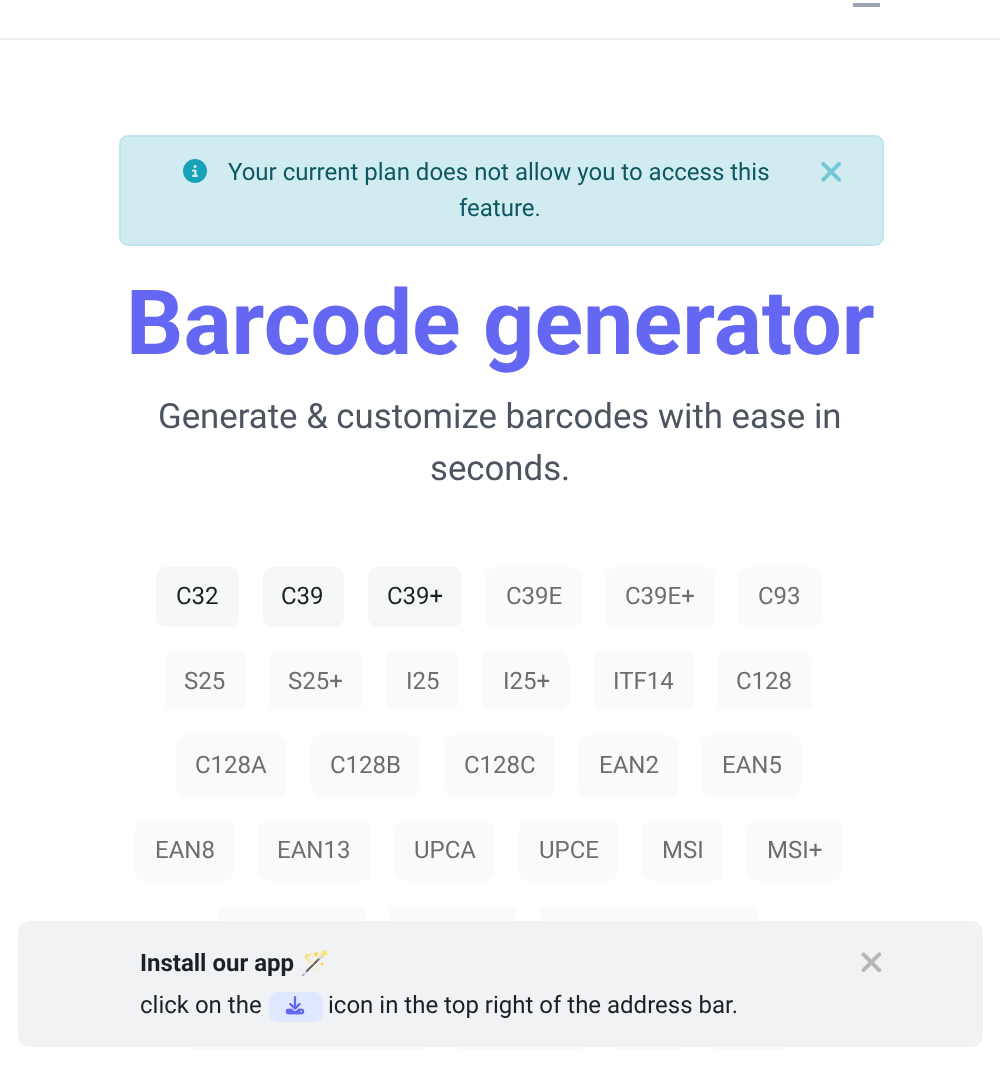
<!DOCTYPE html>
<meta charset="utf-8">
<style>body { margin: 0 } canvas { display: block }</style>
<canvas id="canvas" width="1000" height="1065"></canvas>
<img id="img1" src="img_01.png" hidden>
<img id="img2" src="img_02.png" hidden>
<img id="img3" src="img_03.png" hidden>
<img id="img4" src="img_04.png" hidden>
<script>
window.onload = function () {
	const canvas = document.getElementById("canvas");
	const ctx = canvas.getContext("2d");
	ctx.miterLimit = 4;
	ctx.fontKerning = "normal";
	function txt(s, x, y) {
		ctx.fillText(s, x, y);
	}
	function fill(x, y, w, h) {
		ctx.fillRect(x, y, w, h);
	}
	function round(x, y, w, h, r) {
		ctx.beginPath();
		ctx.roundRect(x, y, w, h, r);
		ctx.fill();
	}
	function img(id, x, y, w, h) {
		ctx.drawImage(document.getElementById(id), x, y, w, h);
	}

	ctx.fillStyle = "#FFFFFF";
	fill(0, 0, 1000, 1065);
	ctx.fillStyle = "#F1F2F4";
	fill(0, 38, 1000, 2);
	ctx.fillStyle = "#9BA4B0";
	fill(853, 3, 27, 4);
	ctx.fillStyle = "#D1ECF1";
	ctx.beginPath();
	ctx.roundRect(120, 136, 763, 109, 8);
	ctx.fill();
	ctx.strokeStyle = "#BEE5EB";
	ctx.lineWidth = 2;
	ctx.stroke();
	img("img1", 183, 159, 24, 24);
	img("img2", 821, 161, 20, 21);
	ctx.fillStyle = "#F6F8F8";
	round(156, 567, 83, 60, 9);
	round(263, 567, 81, 60, 9);
	round(368, 567, 94, 60, 9);
	ctx.fillStyle = "#F9FAFA";
	round(486, 567, 96, 60, 9);
	round(606, 567, 108, 60, 9);
	round(738, 567, 83, 60, 9);
	round(165, 651, 80, 60, 9);
	round(269, 651, 94, 60, 9);
	round(387, 651, 72, 60, 9);
	round(483, 651, 86, 60, 9);
	round(593, 651, 100, 60, 9);
	round(717, 651, 95, 60, 9);
	round(176, 735, 111, 62, 9);
	round(311, 735, 109, 62, 9);
	round(444, 735, 111, 62, 9);
	round(579, 735, 99, 62, 9);
	round(702, 735, 99, 62, 9);
	round(135, 821, 99, 60, 9);
	round(258, 821, 113, 60, 9);
	round(395, 821, 100, 60, 9);
	round(519, 821, 99, 60, 9);
	round(642, 821, 81, 60, 9);
	round(747, 821, 95, 60, 9);
	round(219, 905, 146, 60, 9);
	round(389, 905, 127, 60, 9);
	round(540, 905, 218, 60, 9);
	round(185, 989, 244, 61, 9);
	round(453, 989, 134, 61, 9);
	round(611, 989, 75, 61, 9);
	round(710, 989, 82, 61, 9);
	ctx.fillStyle = "#F1F2F4";
	round(18, 921, 965, 126, 12);
	ctx.fillStyle = "#E0E8FF";
	round(269, 992, 54, 30, 9);
	img("img3", 285, 996, 20, 19);
	img("img4", 861, 952, 21, 20);
	ctx.font = "24px Roboto";
	ctx.fillStyle = "#0E5762";
	txt("Your current plan does not allow you to access this", 228, 180);
	txt("feature.", 459, 216);
	ctx.font = "bold 90px Roboto";
	ctx.fillStyle = "#6467F2";
	txt("Barcode generator", 126, 354);
	ctx.font = "34.75px Roboto";
	ctx.fillStyle = "#4C5461";
	txt("Generate & customize barcodes with ease in", 158, 428);
	txt("seconds.", 430, 480);
	ctx.font = "24px Roboto";
	ctx.fillStyle = "#1D2025";
	txt("C32", 176, 604);
	txt("C39", 281, 604);
	txt("C39+", 387, 604);
	ctx.fillStyle = "#6C6E71";
	txt("C39E", 506, 604);
	txt("C39E+", 625, 604);
	txt("C93", 758, 604);
	txt("S25", 184, 689);
	txt("S25+", 288, 689);
	txt("I25", 406, 689);
	txt("I25+", 503, 689);
	txt("ITF14", 613, 689);
	txt("C128", 736, 689);
	txt("C128A", 195, 773);
	txt("C128B", 330, 773);
	txt("C128C", 464, 773);
	txt("EAN2", 599, 773);
	txt("EAN5", 722, 773);
	txt("EAN8", 155, 858);
	txt("EAN13", 277, 858);
	txt("UPCA", 414, 858);
	txt("UPCE", 539, 858);
	txt("MSI", 662, 858);
	txt("MSI+", 767, 858);
	ctx.font = "bold 24px Roboto";
	ctx.fillStyle = "#1D2025";
	txt("Install our app", 140, 971);
	ctx.font = "bold 24px Noto Color Emoji";
	txt("🪄", 300, 971);
	ctx.font = "24px Roboto";
	txt("click on the", 140, 1013);
	txt("icon in the top right of the address bar.", 328, 1013);
};
</script>
